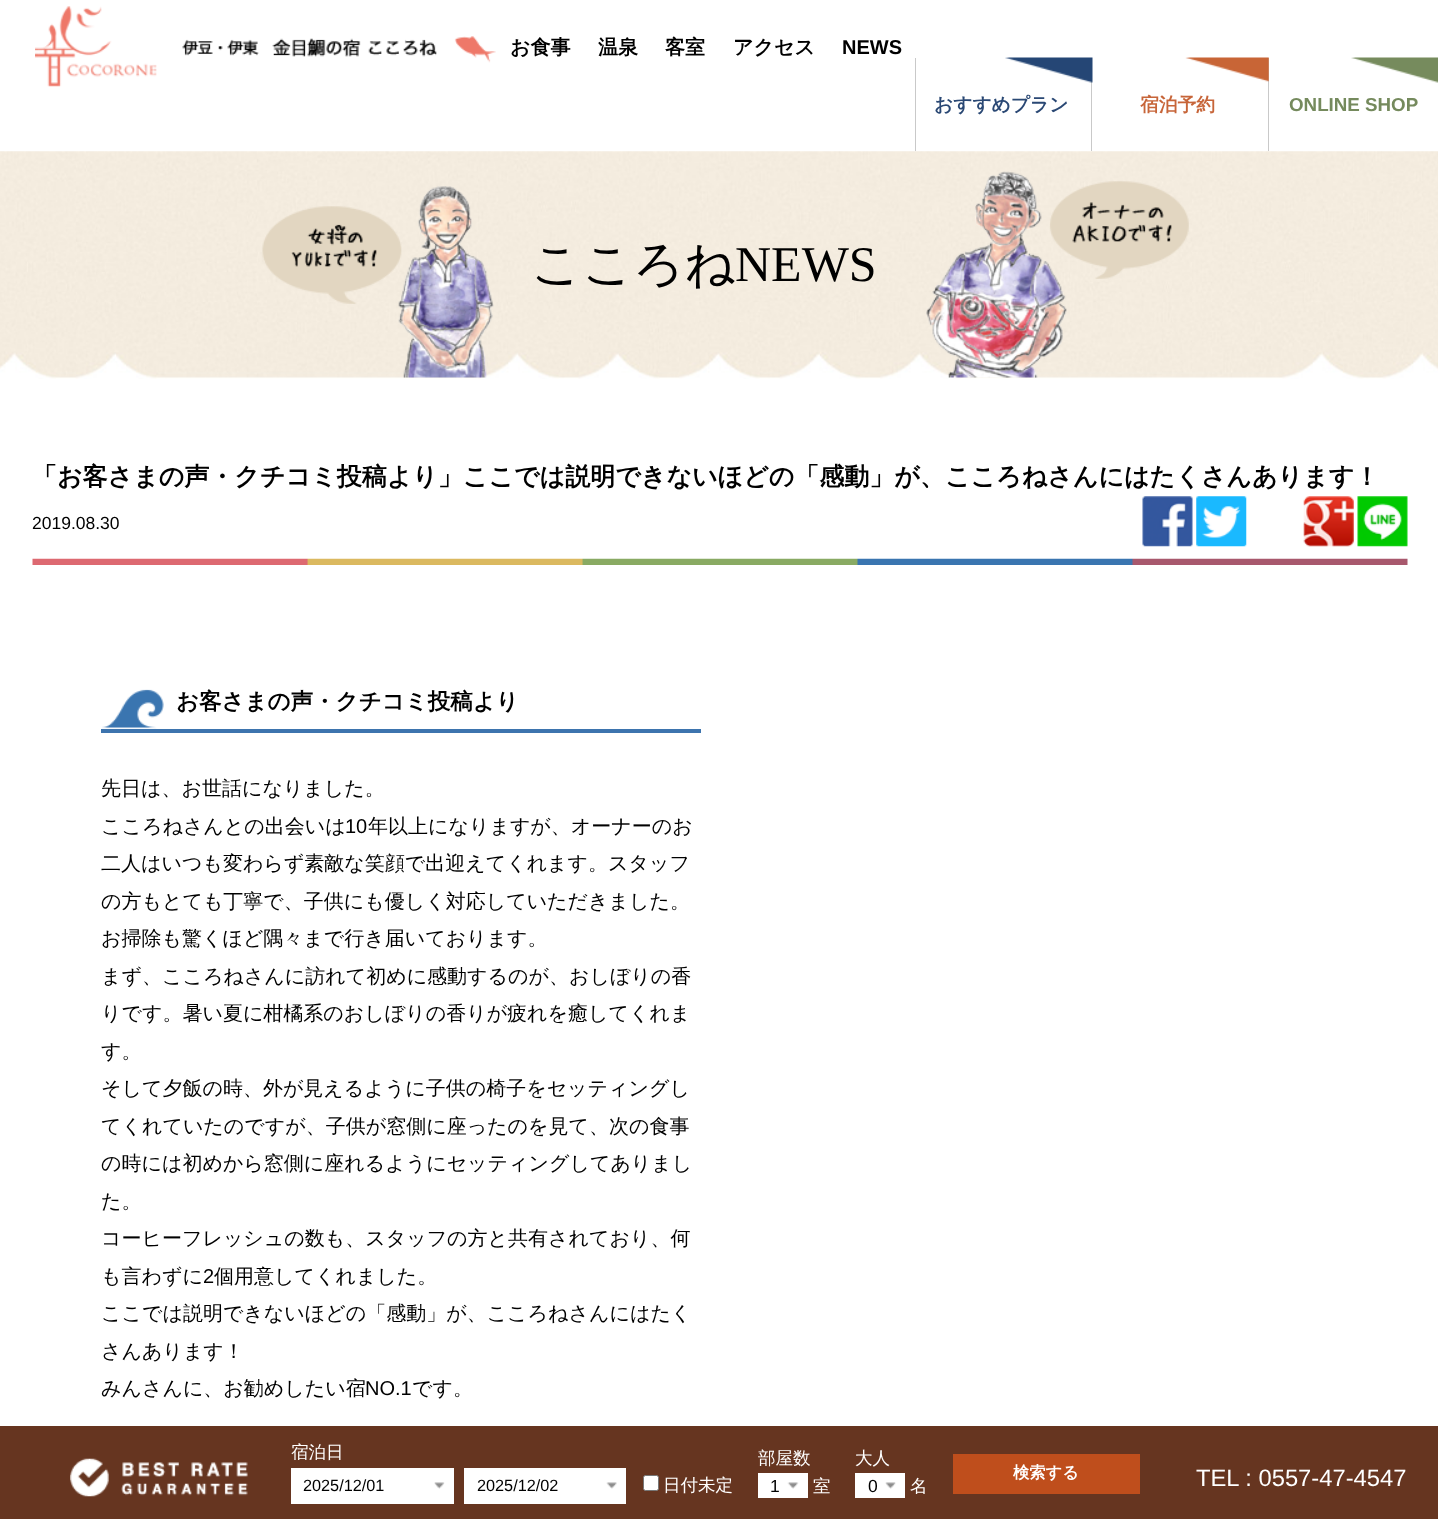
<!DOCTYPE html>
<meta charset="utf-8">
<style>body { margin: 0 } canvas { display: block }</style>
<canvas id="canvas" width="1438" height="1519"></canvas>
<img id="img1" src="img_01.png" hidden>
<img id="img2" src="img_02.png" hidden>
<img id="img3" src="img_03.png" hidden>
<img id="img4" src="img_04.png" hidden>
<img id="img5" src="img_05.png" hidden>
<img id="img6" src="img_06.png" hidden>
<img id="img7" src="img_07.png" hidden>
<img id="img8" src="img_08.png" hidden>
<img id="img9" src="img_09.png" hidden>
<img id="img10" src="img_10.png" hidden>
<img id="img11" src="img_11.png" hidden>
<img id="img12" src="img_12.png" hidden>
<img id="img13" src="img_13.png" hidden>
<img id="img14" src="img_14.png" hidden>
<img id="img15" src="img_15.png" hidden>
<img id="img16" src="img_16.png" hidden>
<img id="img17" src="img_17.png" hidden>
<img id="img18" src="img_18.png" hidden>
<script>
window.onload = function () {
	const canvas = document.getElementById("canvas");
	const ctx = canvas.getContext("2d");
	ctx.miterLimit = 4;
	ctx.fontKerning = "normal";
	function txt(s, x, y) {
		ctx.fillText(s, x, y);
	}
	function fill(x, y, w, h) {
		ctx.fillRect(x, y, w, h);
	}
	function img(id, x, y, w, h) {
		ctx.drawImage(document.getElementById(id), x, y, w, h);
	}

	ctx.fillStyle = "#FFFFFF";
	fill(0, 0, 1438, 1519);
	img("img1", 35, 6, 461, 81);
	ctx.fillStyle = "#C9C9C9";
	fill(915, 58, 1, 93);
	fill(1091, 81, 1, 70);
	img("img2", 1005, 57, 88, 26);
	fill(1268, 58, 1, 93);
	img("img3", 1185, 57, 84, 25);
	img("img4", 1351, 57, 87, 26);
	img("img5", 0, 151, 1438, 228);
	img("img6", 262, 186, 232, 192);
	img("img7", 926, 171, 263, 207);
	img("img8", 32, 558, 1376, 7);
	img("img9", 1142, 496, 51, 51);
	img("img10", 1196, 496, 51, 51);
	img("img11", 1303, 496, 51, 51);
	img("img12", 1357, 496, 51, 51);
	ctx.fillStyle = "#3D74AE";
	fill(101, 729, 600, 4);
	img("img13", 102, 689, 62, 40);
	ctx.fillStyle = "#663520";
	fill(0, 1426, 1438, 93);
	img("img14", 70, 1458, 178, 39);
	ctx.fillStyle = "#FFFFFF";
	fill(291, 1468, 163, 36);
	img("img15", 434, 1482, 11, 7);
	fill(464, 1468, 162, 36);
	img("img16", 606, 1482, 11, 7);
	ctx.beginPath();
	ctx.roundRect(643.5, 1475.5, 15, 15, 2);
	ctx.fill();
	ctx.strokeStyle = "#767676";
	ctx.stroke();
	fill(758, 1473, 50, 25);
	img("img17", 787, 1482, 12, 7);
	fill(855, 1473, 50, 25);
	img("img18", 885, 1482, 11, 7);
	ctx.fillStyle = "#BF4E1C";
	fill(953, 1454, 187, 40);
	ctx.font = "bold 20px WenQuanYi Zen Hei";
	ctx.fillStyle = "#000000";
	txt("お食事", 510, 54);
	txt("温泉", 598, 54);
	txt("客室", 665, 54);
	txt("アクセス", 733, 54);
	ctx.font = "bold 20px Liberation Sans";
	txt("NEWS", 842, 54);
	ctx.font = "bold 18.75px WenQuanYi Zen Hei";
	ctx.fillStyle = "#2A4874";
	txt("おすすめプラン", 934, 111);
	ctx.fillStyle = "#C76539";
	txt("宿泊予約", 1140, 111);
	ctx.font = "bold 18.75px Liberation Sans";
	ctx.fillStyle = "#758A5D";
	txt("ONLINE SHOP", 1289, 111);
	ctx.font = "500 50px WenQuanYi Zen Hei";
	ctx.fillStyle = "#000000";
	txt("こころね", 531, 281);
	ctx.font = "50px Liberation Serif";
	txt("NEWS", 735, 281);
	ctx.font = "bold 25px WenQuanYi Zen Hei";
	txt("「お客さまの声・クチコミ投稿より」ここでは説明できないほどの「感動」が、こころねさんにはたくさんあります！", 32, 485);
	ctx.font = "17.5px Liberation Sans";
	txt("2019.08.30", 32, 529);
	ctx.font = "bold 22.5px WenQuanYi Zen Hei";
	txt("お客さまの声・クチコミ投稿より", 176, 709);
	ctx.font = "500 20px WenQuanYi Zen Hei";
	txt("先日は、お世話になりました。", 101, 795);
	txt("こころねさんとの出会いは", 101, 833);
	ctx.font = "20px Liberation Sans";
	txt("10", 345, 833);
	ctx.font = "500 20px WenQuanYi Zen Hei";
	txt("年以上になりますが、オーナーのお", 368, 833);
	txt("二人はいつも変わらず素敵な笑顔で出迎えてくれます。スタッフ", 101, 870);
	txt("の方もとても丁寧で、子供にも優しく対応していただきました。", 101, 908);
	txt("お掃除も驚くほど隅々まで行き届いております。", 101, 945);
	txt("まず、こころねさんに訪れて初めに感動するのが、おしぼりの香", 101, 983);
	txt("りです。暑い夏に柑橘系のおしぼりの香りが疲れを癒してくれま", 101, 1020);
	txt("す。", 101, 1058);
	txt("そして夕飯の時、外が見えるように子供の椅子をセッティングし", 101, 1095);
	txt("てくれていたのですが、子供が窓側に座ったのを見て、次の食事", 101, 1133);
	txt("の時には初めから窓側に座れるようにセッティングしてありまし", 101, 1170);
	txt("た。", 101, 1208);
	txt("コーヒーフレッシュの数も、スタッフの方と共有されており、何", 101, 1245);
	txt("も言わずに", 101, 1283);
	ctx.font = "20px Liberation Sans";
	txt("2", 203, 1283);
	ctx.font = "500 20px WenQuanYi Zen Hei";
	txt("個用意してくれました。", 214, 1283);
	txt("ここでは説明できないほどの「感動」が、こころねさんにはたく", 101, 1320);
	txt("さんあります！", 101, 1358);
	txt("みんさんに、お勧めしたい宿", 101, 1395);
	ctx.font = "20px Liberation Sans";
	txt("NO.1", 365, 1395);
	ctx.font = "500 20px WenQuanYi Zen Hei";
	txt("です。", 412, 1395);
	ctx.font = "500 17.5px WenQuanYi Zen Hei";
	ctx.fillStyle = "#FFFFFF";
	txt("宿泊日", 291, 1458);
	ctx.font = "16.25px Liberation Sans";
	ctx.fillStyle = "#000000";
	txt("2025/12/01", 303, 1491);
	txt("2025/12/02", 477, 1491);
	ctx.font = "500 17.5px WenQuanYi Zen Hei";
	ctx.fillStyle = "#FFFFFF";
	txt("日付未定", 663, 1491);
	txt("部屋数", 758, 1464);
	ctx.font = "17.5px Liberation Sans";
	ctx.fillStyle = "#000000";
	txt("1", 770, 1492);
	ctx.font = "500 17.5px WenQuanYi Zen Hei";
	ctx.fillStyle = "#FFFFFF";
	txt("室", 813, 1492);
	txt("大人", 855, 1464);
	ctx.font = "17.5px Liberation Sans";
	ctx.fillStyle = "#000000";
	txt("0", 868, 1492);
	ctx.font = "500 17.5px WenQuanYi Zen Hei";
	ctx.fillStyle = "#FFFFFF";
	txt("名", 910, 1492);
	ctx.font = "bold 16.25px WenQuanYi Zen Hei";
	txt("検索する", 1013, 1478);
	ctx.font = "23.75px Liberation Sans";
	txt("TEL : 0557-47-4547", 1196, 1486);
};
</script>
